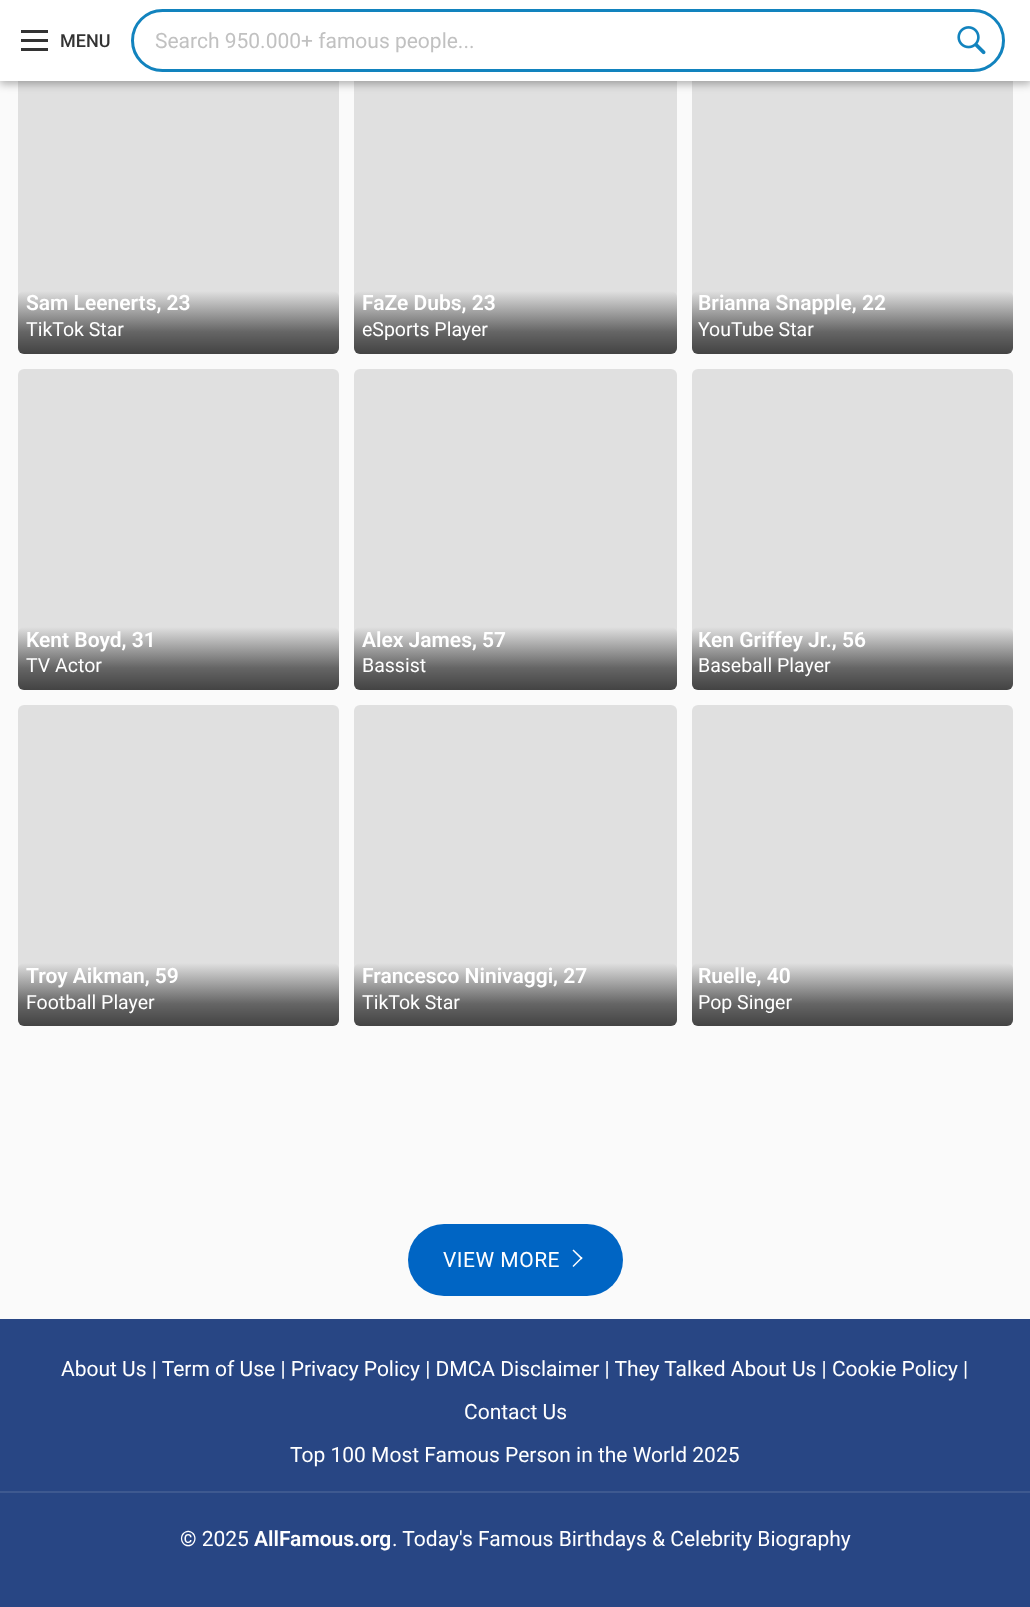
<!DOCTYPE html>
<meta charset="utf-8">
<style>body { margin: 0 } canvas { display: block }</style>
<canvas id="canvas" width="1030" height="1607"></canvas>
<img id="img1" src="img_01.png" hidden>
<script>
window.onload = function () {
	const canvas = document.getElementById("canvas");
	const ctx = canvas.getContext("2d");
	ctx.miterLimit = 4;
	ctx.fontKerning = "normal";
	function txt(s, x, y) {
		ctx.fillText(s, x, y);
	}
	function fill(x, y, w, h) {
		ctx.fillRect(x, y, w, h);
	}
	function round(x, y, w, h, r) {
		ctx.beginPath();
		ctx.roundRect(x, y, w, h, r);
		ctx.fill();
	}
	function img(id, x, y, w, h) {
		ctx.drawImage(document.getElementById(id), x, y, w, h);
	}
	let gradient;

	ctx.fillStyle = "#FAFAFA";
	fill(0, 0, 1030, 1607);
	ctx.fillStyle = "#E0E0E0";
	round(18, 32, 321, 322, 6);
	round(354, 32, 323, 322, 6);
	round(692, 32, 321, 322, 6);
	ctx.fillStyle = "rgba(0, 0, 0, 0.3)";
	ctx.filter = "blur(4px)";
	ctx.beginPath();
	ctx.rect(0, 3, 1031, 81);
	ctx.fill();
	ctx.filter = "none";
	ctx.fillStyle = "#FFFFFF";
	fill(0, 0, 1030, 81);
	ctx.fillStyle = "#333333";
	fill(21, 39, 27, 3);
	fill(21, 30, 27, 3);
	fill(21, 48, 27, 3);
	ctx.beginPath();
	ctx.roundRect(132.5, 10.5, 871, 60, 30);
	ctx.strokeStyle = "#1283BE";
	ctx.lineWidth = 3;
	ctx.stroke();
	img("img1", 957, 26, 29, 29);
	gradient = ctx.createLinearGradient(179, 291, 179, 354);
	gradient.addColorStop(0, "rgba(0, 0, 0, 0)");
	gradient.addColorStop(0.65, "rgba(0, 0, 0, 0.55)");
	gradient.addColorStop(1, "rgba(0, 0, 0, 0.7)");
	ctx.fillStyle = gradient;
	round(18, 291, 321, 63, 6);
	gradient = ctx.createLinearGradient(515, 291, 515, 354);
	gradient.addColorStop(0, "rgba(0, 0, 0, 0)");
	gradient.addColorStop(0.65, "rgba(0, 0, 0, 0.55)");
	gradient.addColorStop(1, "rgba(0, 0, 0, 0.7)");
	ctx.fillStyle = gradient;
	round(354, 291, 323, 63, 6);
	gradient = ctx.createLinearGradient(852, 291, 852, 354);
	gradient.addColorStop(0, "rgba(0, 0, 0, 0)");
	gradient.addColorStop(0.65, "rgba(0, 0, 0, 0.55)");
	gradient.addColorStop(1, "rgba(0, 0, 0, 0.7)");
	ctx.fillStyle = gradient;
	round(692, 291, 321, 63, 6);
	ctx.fillStyle = "#E0E0E0";
	round(18, 369, 321, 321, 6);
	gradient = ctx.createLinearGradient(179, 627, 179, 690);
	gradient.addColorStop(0, "rgba(0, 0, 0, 0)");
	gradient.addColorStop(0.65, "rgba(0, 0, 0, 0.55)");
	gradient.addColorStop(1, "rgba(0, 0, 0, 0.7)");
	ctx.fillStyle = gradient;
	round(18, 627, 321, 63, 6);
	ctx.fillStyle = "#E0E0E0";
	round(354, 369, 323, 321, 6);
	gradient = ctx.createLinearGradient(515, 627, 515, 690);
	gradient.addColorStop(0, "rgba(0, 0, 0, 0)");
	gradient.addColorStop(0.65, "rgba(0, 0, 0, 0.55)");
	gradient.addColorStop(1, "rgba(0, 0, 0, 0.7)");
	ctx.fillStyle = gradient;
	round(354, 627, 323, 63, 6);
	ctx.fillStyle = "#E0E0E0";
	round(692, 369, 321, 321, 6);
	gradient = ctx.createLinearGradient(852, 627, 852, 690);
	gradient.addColorStop(0, "rgba(0, 0, 0, 0)");
	gradient.addColorStop(0.65, "rgba(0, 0, 0, 0.55)");
	gradient.addColorStop(1, "rgba(0, 0, 0, 0.7)");
	ctx.fillStyle = gradient;
	round(692, 627, 321, 63, 6);
	ctx.fillStyle = "#E0E0E0";
	round(18, 705, 321, 321, 6);
	gradient = ctx.createLinearGradient(179, 963, 179, 1026);
	gradient.addColorStop(0, "rgba(0, 0, 0, 0)");
	gradient.addColorStop(0.65, "rgba(0, 0, 0, 0.55)");
	gradient.addColorStop(1, "rgba(0, 0, 0, 0.7)");
	ctx.fillStyle = gradient;
	round(18, 963, 321, 63, 6);
	ctx.fillStyle = "#E0E0E0";
	round(354, 705, 323, 321, 6);
	gradient = ctx.createLinearGradient(515, 963, 515, 1026);
	gradient.addColorStop(0, "rgba(0, 0, 0, 0)");
	gradient.addColorStop(0.65, "rgba(0, 0, 0, 0.55)");
	gradient.addColorStop(1, "rgba(0, 0, 0, 0.7)");
	ctx.fillStyle = gradient;
	round(354, 963, 323, 63, 6);
	ctx.fillStyle = "#E0E0E0";
	round(692, 705, 321, 321, 6);
	gradient = ctx.createLinearGradient(852, 963, 852, 1026);
	gradient.addColorStop(0, "rgba(0, 0, 0, 0)");
	gradient.addColorStop(0.65, "rgba(0, 0, 0, 0.55)");
	gradient.addColorStop(1, "rgba(0, 0, 0, 0.7)");
	ctx.fillStyle = gradient;
	round(692, 963, 321, 63, 6);
	ctx.fillStyle = "#0065C4";
	round(408, 1224, 215, 72, 36);
	ctx.fillStyle = "#FFFFFF";
	ctx.beginPath();
	ctx.moveTo(581.5, 1259.5);
	ctx.lineTo(572.5, 1250.5);
	ctx.lineTo(573.5, 1249.5);
	ctx.lineTo(582.5, 1258);
	ctx.closePath();
	ctx.fill();
	ctx.beginPath();
	ctx.moveTo(573.5, 1267);
	ctx.lineTo(572.5, 1266);
	ctx.lineTo(581.5, 1257);
	ctx.lineTo(582.5, 1258);
	ctx.closePath();
	ctx.fill();
	ctx.fillStyle = "#284684";
	fill(0, 1319, 1030, 288);
	ctx.fillStyle = "#3E5990";
	fill(0, 1491, 1030, 2);
	ctx.font = "500 18px Roboto";
	ctx.fillStyle = "#333333";
	txt("MENU", 60, 47);
	ctx.font = "21px Roboto";
	ctx.fillStyle = "#C1C1C1";
	txt("Search 950.000+ famous people...", 155, 48);
	ctx.font = "600 21px Roboto";
	ctx.fillStyle = "#FFFFFF";
	txt("Sam Leenerts, 23", 26, 310);
	ctx.font = "19.5px Roboto";
	txt("TikTok Star", 26, 336);
	ctx.font = "600 21px Roboto";
	txt("FaZe Dubs, 23", 362, 310);
	ctx.font = "19.5px Roboto";
	txt("eSports Player", 362, 336);
	ctx.font = "600 21px Roboto";
	txt("Brianna Snapple, 22", 698, 310);
	ctx.font = "19.5px Roboto";
	txt("YouTube Star", 698, 336);
	ctx.font = "600 21px Roboto";
	txt("Kent Boyd, 31", 26, 647);
	ctx.font = "19.5px Roboto";
	txt("TV Actor", 26, 672);
	ctx.font = "600 21px Roboto";
	txt("Alex James, 57", 362, 647);
	ctx.font = "19.5px Roboto";
	txt("Bassist", 362, 672);
	ctx.font = "600 21px Roboto";
	txt("Ken Griffey Jr., 56", 698, 647);
	ctx.font = "19.5px Roboto";
	txt("Baseball Player", 698, 672);
	ctx.font = "600 21px Roboto";
	txt("Troy Aikman, 59", 26, 983);
	ctx.font = "19.5px Roboto";
	txt("Football Player", 26, 1009);
	ctx.font = "600 21px Roboto";
	txt("Francesco Ninivaggi, 27", 362, 983);
	ctx.font = "19.5px Roboto";
	txt("TikTok Star", 362, 1009);
	ctx.font = "600 21px Roboto";
	txt("Ruelle, 40", 698, 983);
	ctx.font = "19.5px Roboto";
	txt("Pop Singer", 698, 1009);
	ctx.letterSpacing = "0.5px";
	ctx.font = "21px Roboto";
	txt("VIEW MORE", 443, 1267);
	ctx.letterSpacing = "0px";
	txt("About Us | Term of Use | Privacy Policy | DMCA Disclaimer | They Talked About Us | Cookie Policy |", 61, 1376);
	txt("Contact Us", 464, 1419);
	txt("Top 100 Most Famous Person in the World 2025", 290, 1462);
	txt("© 2025", 180, 1546);
	ctx.font = "600 21px Roboto";
	txt("AllFamous.org", 254, 1546);
	ctx.font = "21px Roboto";
	txt(". Today's Famous Birthdays & Celebrity Biography", 392, 1546);
};
</script>
